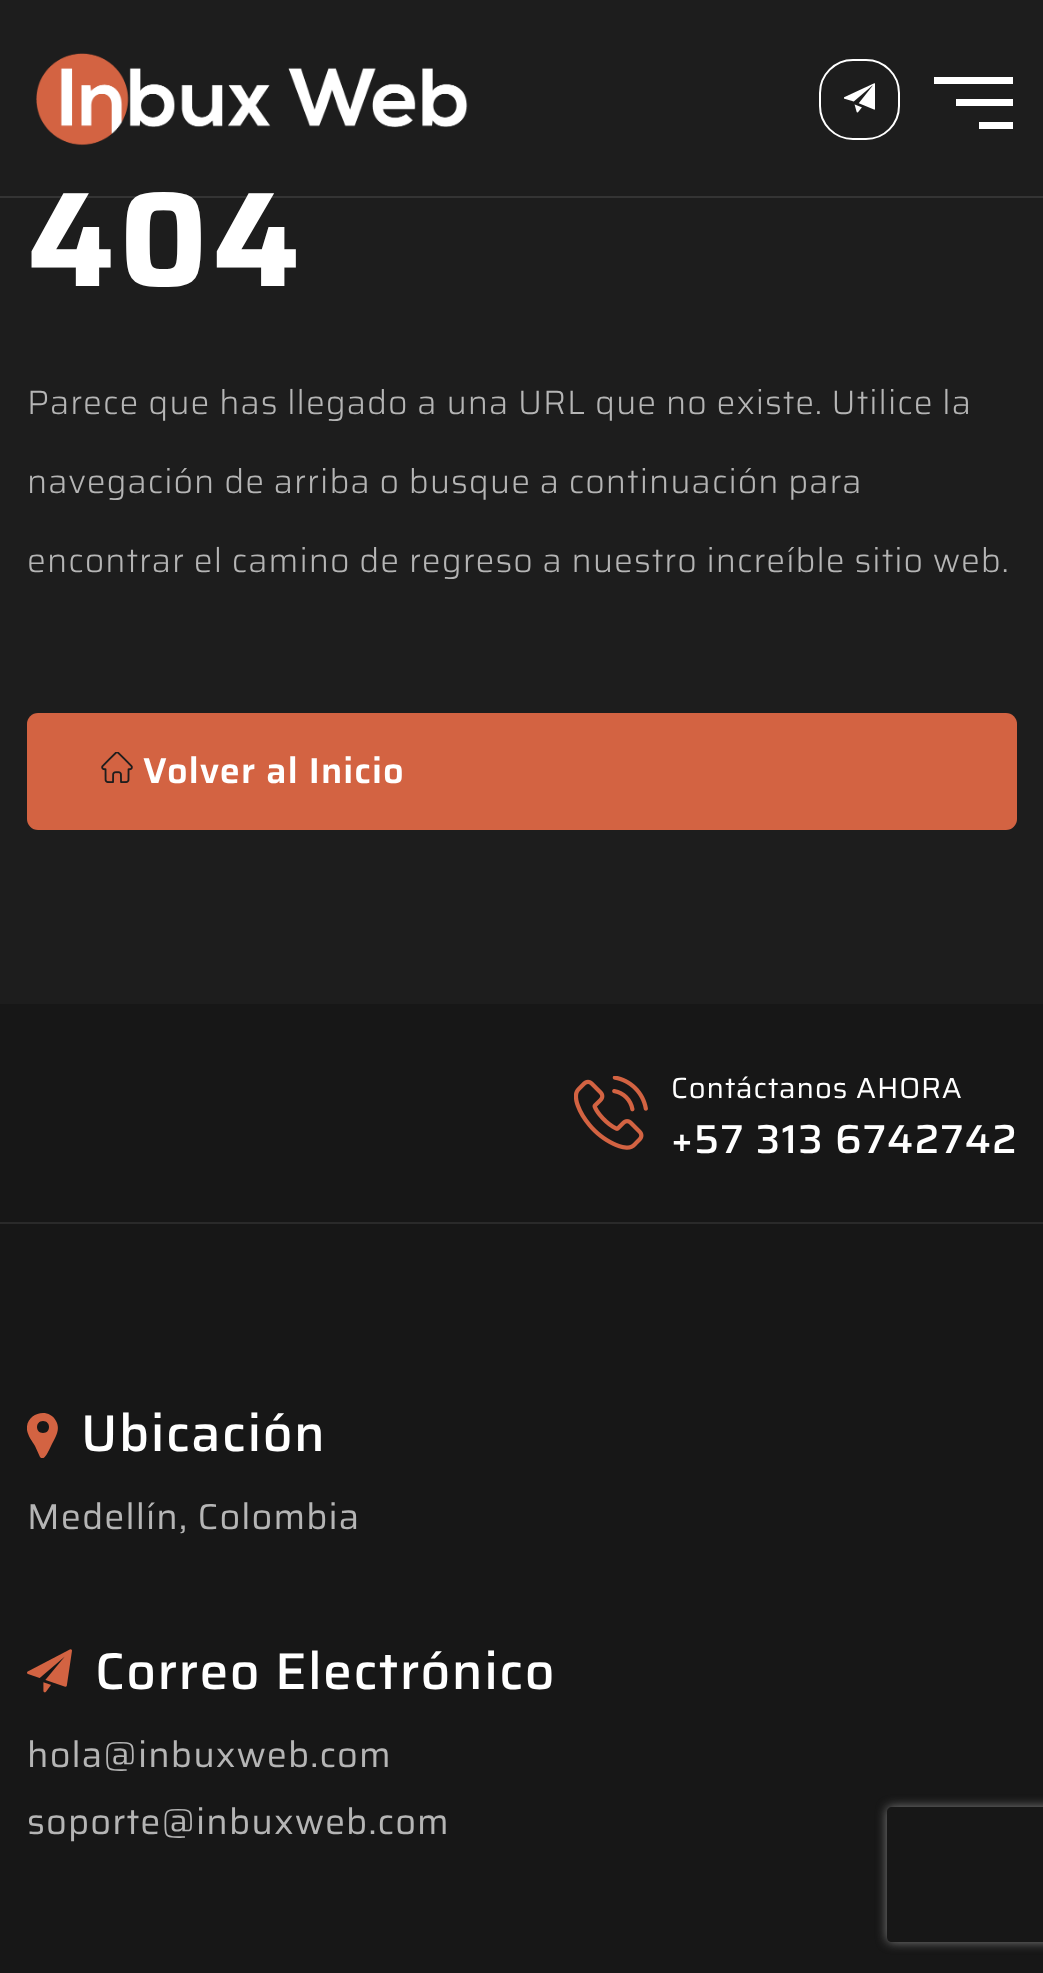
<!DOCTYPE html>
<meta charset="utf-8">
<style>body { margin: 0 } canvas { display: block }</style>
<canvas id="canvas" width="1043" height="1973"></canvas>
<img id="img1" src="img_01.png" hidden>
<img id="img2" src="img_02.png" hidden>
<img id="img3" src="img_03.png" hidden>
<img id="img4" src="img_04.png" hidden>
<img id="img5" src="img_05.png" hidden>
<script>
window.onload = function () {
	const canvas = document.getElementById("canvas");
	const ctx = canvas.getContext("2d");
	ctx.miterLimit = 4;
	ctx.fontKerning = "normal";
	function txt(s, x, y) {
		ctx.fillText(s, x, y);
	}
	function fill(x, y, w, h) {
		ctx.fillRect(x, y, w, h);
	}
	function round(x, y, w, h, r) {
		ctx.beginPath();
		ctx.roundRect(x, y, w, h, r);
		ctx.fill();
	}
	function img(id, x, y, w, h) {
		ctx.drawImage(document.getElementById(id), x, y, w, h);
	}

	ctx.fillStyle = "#1D1D1D";
	fill(0, 0, 1043, 1973);
	ctx.fillStyle = "rgba(255, 255, 255, 0.1)";
	fill(0, 196, 1043, 2);
	img("img1", 36, 53, 432, 93);
	ctx.beginPath();
	ctx.roundRect(820, 60, 79, 79, 33);
	ctx.strokeStyle = "#FFFFFF";
	ctx.lineWidth = 2;
	ctx.stroke();
	img("img2", 844, 83, 31, 30);
	ctx.fillStyle = "#FFFFFF";
	fill(956, 99, 57, 7);
	fill(934, 77, 79, 7);
	fill(979, 122, 34, 7);
	ctx.fillStyle = "#D36342";
	round(27, 713, 990, 117, 11);
	img("img3", 101, 752, 32, 31);
	ctx.fillStyle = "#171717";
	fill(0, 1004, 1043, 969);
	ctx.fillStyle = "#2A2A2A";
	fill(0, 1222, 1043, 2);
	img("img4", 574, 1076, 74, 74);
	ctx.save();
	ctx.beginPath();
	ctx.rect(27, 1413, 32, 45);
	ctx.clip();
	ctx.fillStyle = "#D36342";
	ctx.beginPath();
	ctx.moveTo(56, 1421);
	ctx.bezierCurveTo(48, 1406, 25, 1414, 27, 1430);
	ctx.bezierCurveTo(28, 1436, 32, 1441, 35, 1446);
	ctx.lineTo(40, 1457);
	ctx.bezierCurveTo(44, 1462, 48, 1452, 51, 1446);
	ctx.bezierCurveTo(55, 1438, 61, 1430, 56, 1421);
	ctx.closePath();
	ctx.moveTo(43, 1433);
	ctx.bezierCurveTo(35, 1433, 35, 1421, 43, 1421);
	ctx.bezierCurveTo(51, 1421, 51, 1433, 43, 1433);
	ctx.closePath();
	ctx.fill();
	ctx.restore();
	img("img5", 27, 1649, 45, 44);
	ctx.save();
	ctx.beginPath();
	ctx.moveTo(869, 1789);
	ctx.lineTo(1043, 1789);
	ctx.lineTo(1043, 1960);
	ctx.lineTo(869, 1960);
	ctx.closePath();
	ctx.moveTo(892, 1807);
	ctx.lineTo(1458, 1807);
	ctx.bezierCurveTo(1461, 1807, 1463, 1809, 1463, 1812);
	ctx.lineTo(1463, 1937);
	ctx.bezierCurveTo(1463, 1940, 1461, 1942, 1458, 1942);
	ctx.lineTo(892, 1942);
	ctx.bezierCurveTo(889, 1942, 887, 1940, 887, 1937);
	ctx.lineTo(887, 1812);
	ctx.bezierCurveTo(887, 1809, 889, 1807, 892, 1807);
	ctx.closePath();
	ctx.clip("evenodd");
	ctx.fillStyle = "#808080";
	ctx.filter = "blur(5.5px)";
	ctx.beginPath();
	ctx.roundRect(887, 1807, 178, 135, 5);
	ctx.fill();
	ctx.filter = "none";
	ctx.restore();
	ctx.letterSpacing = "4px";
	ctx.font = "bold 135px Saira";
	ctx.fillStyle = "#FFFFFF";
	txt("404", 27, 286);
	ctx.letterSpacing = "1px";
	ctx.font = "300 33.75px Saira";
	ctx.fillStyle = "#B5B5B5";
	txt("Parece que has llegado a una URL que no existe. Utilice la", 27, 414);
	txt("navegación de arriba o busque a continuación para", 27, 493);
	txt("encontrar el camino de regreso a nuestro increíble sitio web.", 27, 572);
	ctx.letterSpacing = "1.1px";
	ctx.font = "600 36px Saira";
	ctx.fillStyle = "#FFFFFF";
	txt("Volver al Inicio", 143, 783);
	ctx.letterSpacing = "0.9px";
	ctx.font = "29.25px Saira";
	txt("Contáctanos AHORA", 671, 1098);
	ctx.letterSpacing = "1.25px";
	ctx.font = "500 40.5px Saira";
	txt("+57 313 6742742", 671, 1153);
	ctx.letterSpacing = "1.5px";
	ctx.font = "500 51.75px Saira";
	txt("Ubicación", 81, 1451);
	ctx.letterSpacing = "1.1px";
	ctx.font = "36px Saira";
	ctx.fillStyle = "#B5B5B5";
	txt("Medellín, Colombia", 27, 1529);
	ctx.letterSpacing = "1.5px";
	ctx.font = "500 51.75px Saira";
	ctx.fillStyle = "#FFFFFF";
	txt("Correo Electrónico", 95, 1689);
	ctx.letterSpacing = "1.1px";
	ctx.font = "36px Saira";
	ctx.fillStyle = "#B5B5B5";
	txt("hola@inbuxweb.com", 27, 1767);
	txt("soporte@inbuxweb.com", 27, 1834);
};
</script>
